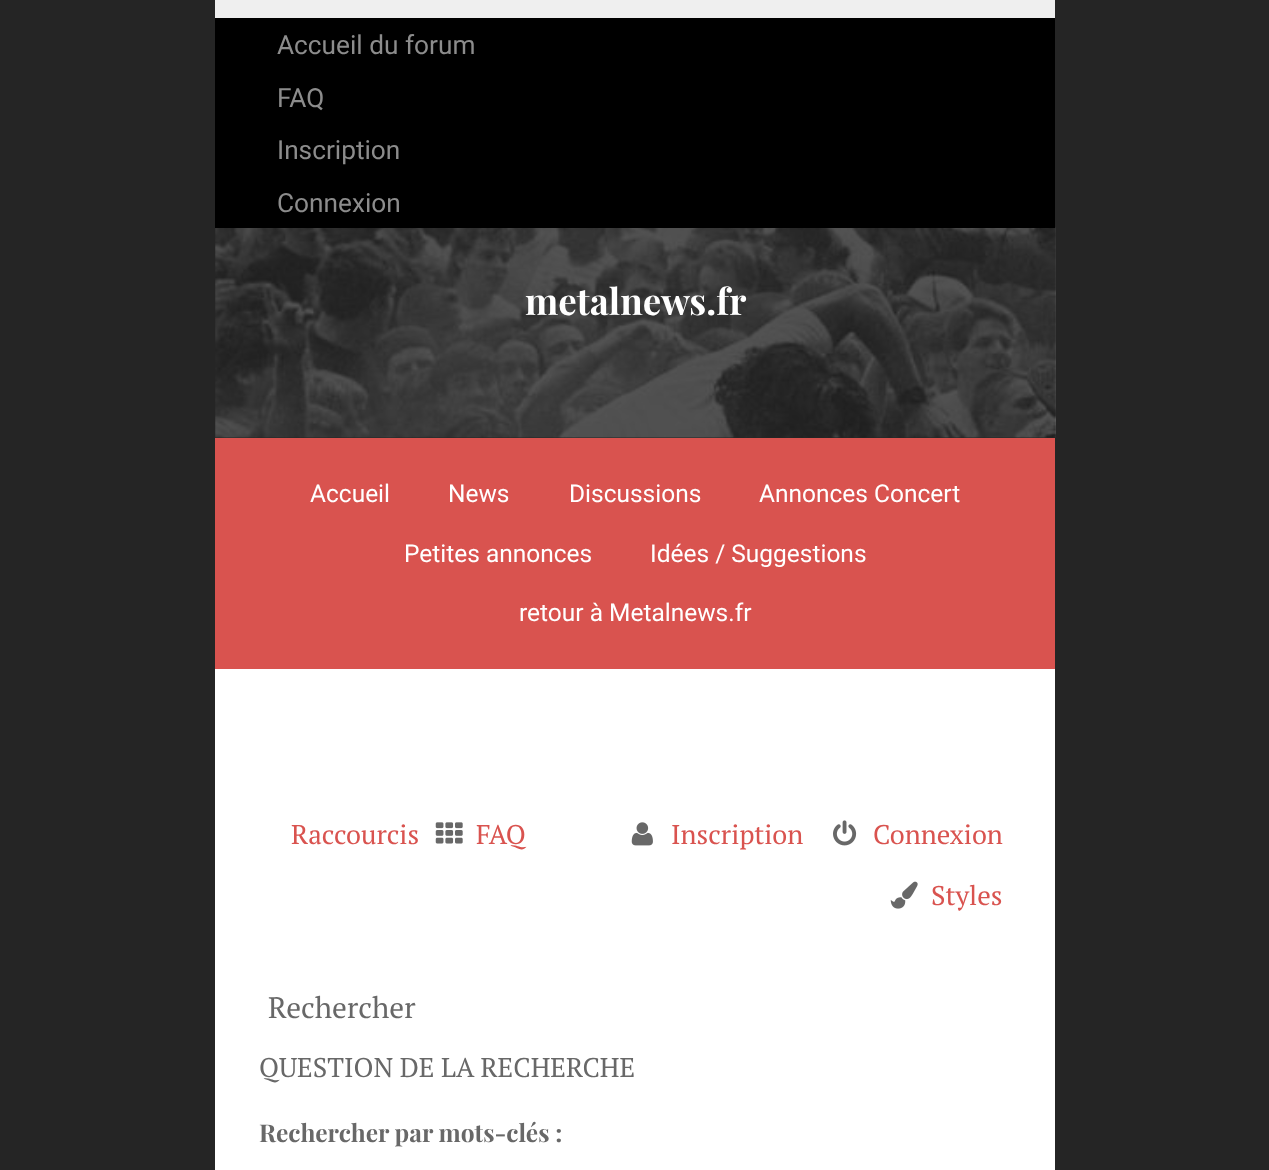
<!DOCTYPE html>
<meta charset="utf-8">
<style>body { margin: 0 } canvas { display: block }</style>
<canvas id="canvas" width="1269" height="1170"></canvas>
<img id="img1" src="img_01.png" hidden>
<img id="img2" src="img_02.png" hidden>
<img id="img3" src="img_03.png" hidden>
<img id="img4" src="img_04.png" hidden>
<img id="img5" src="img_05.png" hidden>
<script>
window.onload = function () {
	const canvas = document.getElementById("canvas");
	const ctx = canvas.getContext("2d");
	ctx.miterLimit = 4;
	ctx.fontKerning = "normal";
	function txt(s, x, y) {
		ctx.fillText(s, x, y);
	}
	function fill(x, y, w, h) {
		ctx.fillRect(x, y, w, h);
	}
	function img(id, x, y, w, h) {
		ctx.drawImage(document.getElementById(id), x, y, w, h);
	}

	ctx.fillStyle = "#252525";
	fill(0, 0, 1269, 1170);
	img("img1", 215, 227, 841, 211);
	ctx.fillStyle = "#000000";
	fill(215, 18, 840, 210);
	ctx.fillStyle = "#EFEFEF";
	fill(215, 0, 840, 18);
	ctx.fillStyle = "#D9534F";
	fill(215, 438, 840, 231);
	ctx.fillStyle = "#FFFFFF";
	fill(215, 669, 840, 501);
	img("img2", 435, 822, 28, 22);
	img("img3", 631, 822, 22, 24);
	img("img4", 833, 820, 24, 26);
	img("img5", 890, 881, 28, 28);
	ctx.font = "26.25px Roboto";
	ctx.fillStyle = "#8C8C8C";
	txt("Accueil du forum", 277, 54);
	txt("FAQ", 277, 107);
	txt("Inscription", 277, 159);
	txt("Connexion", 277, 212);
	ctx.font = "bold 36.75px Playfair Display";
	ctx.fillStyle = "#FFFFFF";
	txt("metalnews.fr", 525, 315);
	ctx.font = "24.5px Roboto";
	txt("Accueil", 310, 502);
	txt("News", 448, 502);
	txt("Discussions", 569, 502);
	txt("Annonces Concert", 759, 502);
	txt("Petites annonces", 404, 562);
	txt("Idées / Suggestions", 650, 562);
	txt("retour à Metalnews.fr", 519, 621);
	ctx.font = "27px PT Serif";
	ctx.fillStyle = "#D9534F";
	txt("Raccourcis", 291, 844);
	txt("FAQ", 476, 844);
	txt("Inscription", 671, 844);
	txt("Connexion", 873, 844);
	txt("Styles", 931, 905);
	ctx.font = "29.5px PT Serif";
	ctx.fillStyle = "#686868";
	txt("Rechercher", 268, 1018);
	ctx.font = "27px PT Serif";
	txt("QUESTION DE LA RECHERCHE", 259, 1077);
	ctx.font = "bold 24.5px Playfair Display";
	txt("Rechercher par mots-clés :", 259, 1142);
};
</script>
